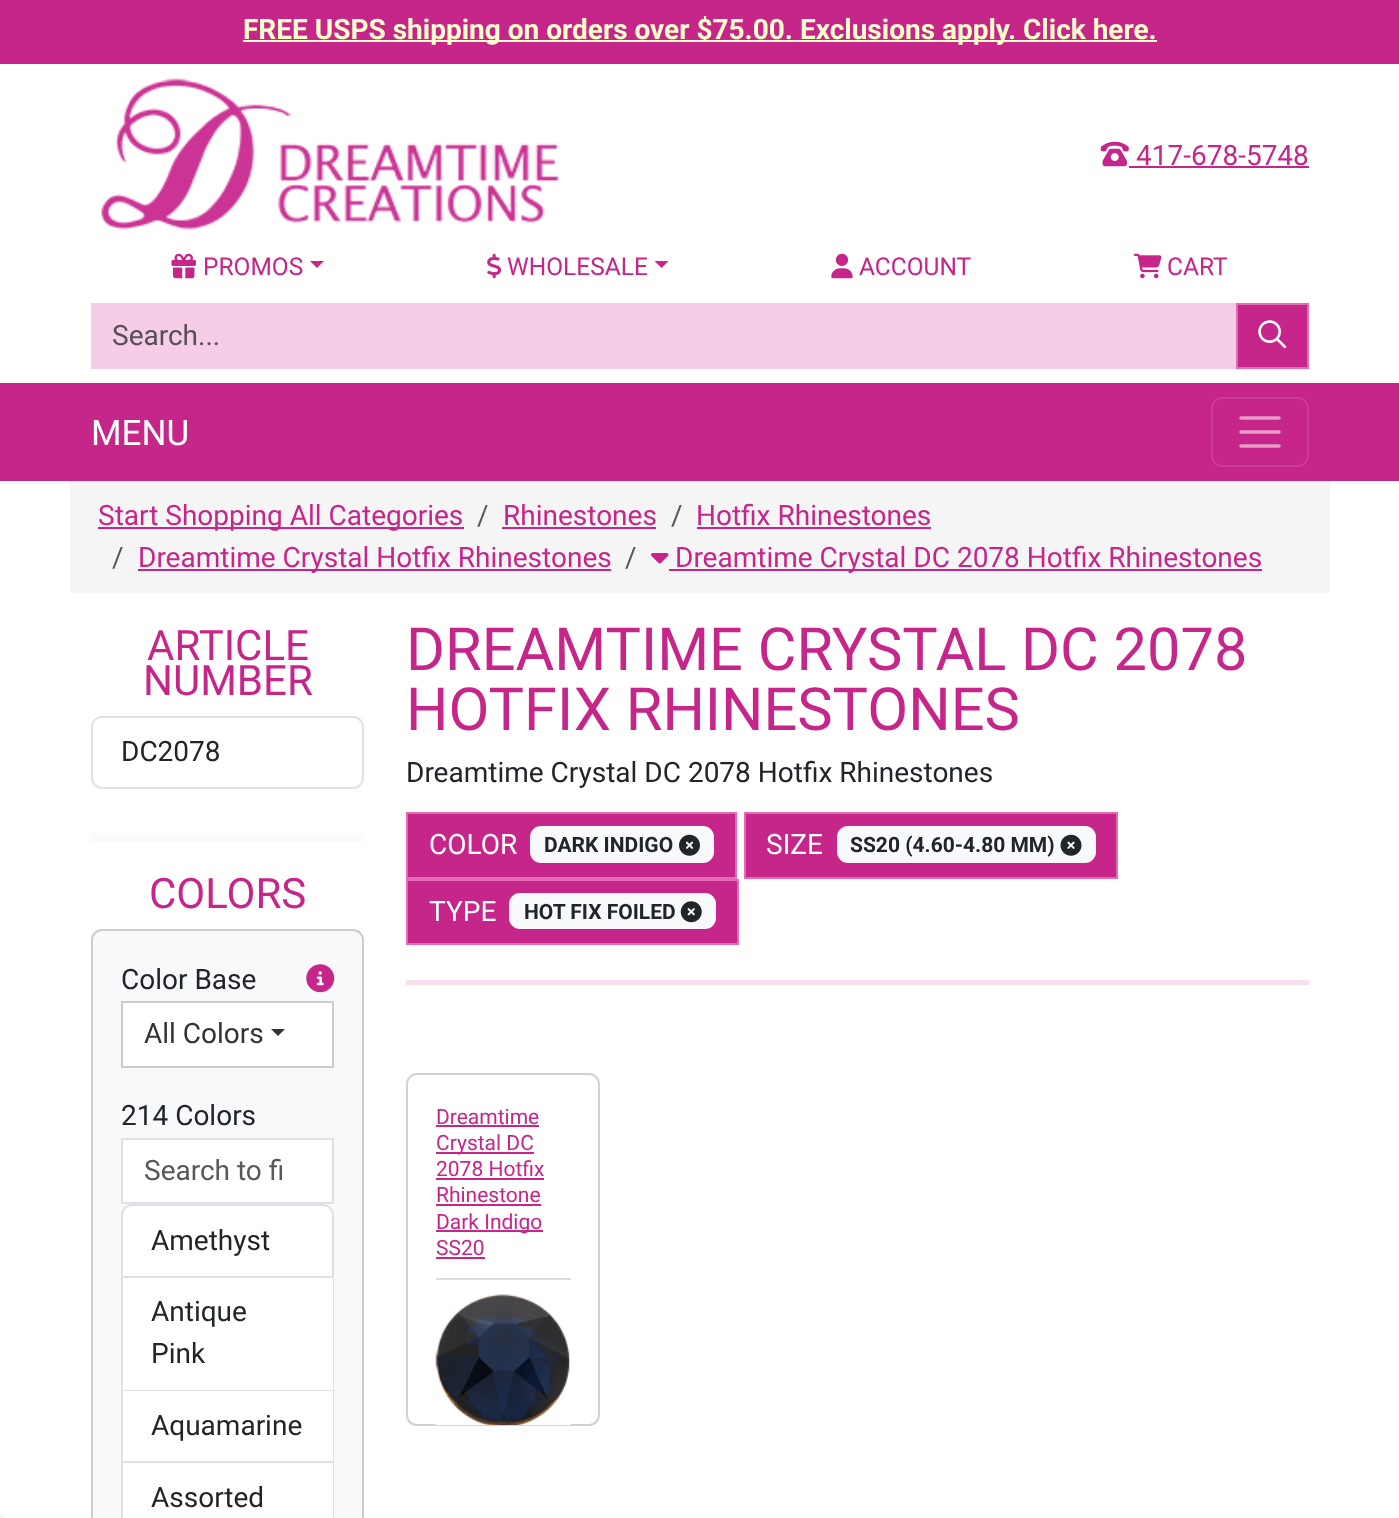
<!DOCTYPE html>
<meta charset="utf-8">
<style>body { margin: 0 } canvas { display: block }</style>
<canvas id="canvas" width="1399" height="1518"></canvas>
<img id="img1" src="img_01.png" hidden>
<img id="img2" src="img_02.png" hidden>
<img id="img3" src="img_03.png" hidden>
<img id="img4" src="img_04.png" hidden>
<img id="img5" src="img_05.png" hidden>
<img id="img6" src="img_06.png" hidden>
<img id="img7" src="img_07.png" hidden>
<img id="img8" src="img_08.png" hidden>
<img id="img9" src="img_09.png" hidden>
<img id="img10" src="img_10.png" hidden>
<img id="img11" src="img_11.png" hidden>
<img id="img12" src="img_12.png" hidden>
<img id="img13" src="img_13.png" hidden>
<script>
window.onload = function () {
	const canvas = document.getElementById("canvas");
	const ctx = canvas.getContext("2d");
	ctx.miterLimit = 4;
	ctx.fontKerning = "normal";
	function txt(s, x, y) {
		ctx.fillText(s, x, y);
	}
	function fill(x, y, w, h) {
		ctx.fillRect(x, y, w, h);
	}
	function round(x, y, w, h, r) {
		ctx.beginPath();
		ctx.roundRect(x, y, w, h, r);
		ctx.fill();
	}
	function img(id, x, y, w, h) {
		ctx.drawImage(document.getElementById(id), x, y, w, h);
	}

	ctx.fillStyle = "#FFFFFF";
	fill(0, 0, 1399, 1518);
	ctx.fillStyle = "#C62589";
	fill(0, 0, 1399, 64);
	ctx.fillStyle = "#FFFFCC";
	fill(243, 40, 914, 2);
	img("img1", 101, 78, 458, 152);
	img("img2", 1100, 141, 29, 26);
	ctx.fillStyle = "#C62589";
	fill(1129, 166, 180, 2);
	img("img3", 171, 253, 25, 26);
	ctx.beginPath();
	ctx.moveTo(310, 261);
	ctx.lineTo(324, 261);
	ctx.lineTo(317, 268);
	ctx.closePath();
	ctx.fill();
	img("img4", 487, 253, 14, 26);
	ctx.beginPath();
	ctx.moveTo(654.5, 261);
	ctx.lineTo(668.5, 261);
	ctx.lineTo(661.5, 268);
	ctx.closePath();
	ctx.fill();
	img("img5", 831, 253, 22, 26);
	img("img6", 1134, 253, 28, 26);
	ctx.fillStyle = "#F6CDE6";
	fill(91, 303, 1145, 66);
	ctx.fillStyle = "#C62589";
	ctx.beginPath();
	ctx.rect(1237, 304, 71, 64);
	ctx.fill();
	ctx.strokeStyle = "#E36AB5";
	ctx.lineWidth = 2;
	ctx.stroke();
	img("img7", 1258, 320, 29, 29);
	fill(0, 383, 1399, 98);
	ctx.beginPath();
	ctx.roundRect(1212, 398, 96, 68, 10);
	ctx.strokeStyle = "#CC3B95";
	ctx.stroke();
	ctx.beginPath();
	ctx.moveTo(1241, 418);
	ctx.lineTo(1279, 418);
	ctx.moveTo(1241, 432);
	ctx.lineTo(1279, 432);
	ctx.moveTo(1241, 446);
	ctx.lineTo(1279, 446);
	ctx.strokeStyle = "#E59DCA";
	ctx.lineWidth = 3.5;
	ctx.lineCap = "round";
	ctx.stroke();
	ctx.fillStyle = "#F5F5F5";
	fill(70, 481, 1260, 112);
	ctx.fillStyle = "#C62589";
	fill(98, 527, 366, 2);
	fill(502, 527, 154, 2);
	fill(697, 527, 234, 2);
	fill(138, 569, 473, 2);
	img("img8", 651, 553, 18, 11);
	fill(669, 569, 593, 2);
	ctx.fillStyle = "#FAFAFA";
	fill(91, 833, 273, 9);
	ctx.beginPath();
	ctx.roundRect(92, 717, 271, 71, 10);
	ctx.strokeStyle = "#DEE2E6";
	ctx.lineWidth = 2;
	ctx.stroke();
	ctx.fillStyle = "#F8F9FA";
	ctx.beginPath();
	ctx.roundRect(92, 930, 271, 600, 10);
	ctx.fill();
	ctx.strokeStyle = "#CCCDCE";
	ctx.stroke();
	img("img9", 306, 964, 29, 29);
	ctx.fillStyle = "#FFFFFF";
	ctx.beginPath();
	ctx.rect(122, 1002, 211, 65);
	ctx.fill();
	ctx.strokeStyle = "#CCCCCC";
	ctx.stroke();
	ctx.fillStyle = "#333333";
	ctx.beginPath();
	ctx.moveTo(271, 1029);
	ctx.lineTo(285, 1029);
	ctx.lineTo(278, 1036);
	ctx.closePath();
	ctx.fill();
	ctx.fillStyle = "#FFFFFF";
	ctx.beginPath();
	ctx.rect(122, 1139, 211, 64);
	ctx.fill();
	ctx.strokeStyle = "#DEE2E6";
	ctx.stroke();
	ctx.beginPath();
	ctx.roundRect(122, 1205, 211, 72, [10, 10, 0, 0]);
	ctx.fill();
	ctx.stroke();
	fill(123, 1278, 210, 112);
	ctx.fillStyle = "#DEE2E6";
	fill(333, 1278, 1, 240);
	fill(121, 1390, 213, 1);
	fill(121, 1278, 2, 113);
	ctx.fillStyle = "#FFFFFF";
	fill(123, 1391, 210, 70);
	ctx.fillStyle = "#DEE2E6";
	fill(121, 1461, 213, 2);
	fill(121, 1391, 2, 127);
	ctx.fillStyle = "#FFFFFF";
	fill(123, 1463, 210, 55);
	ctx.fillStyle = "#C62589";
	ctx.beginPath();
	ctx.rect(407, 813, 329, 65);
	ctx.fill();
	ctx.strokeStyle = "#E36AB5";
	ctx.stroke();
	ctx.fillStyle = "#F8F9FA";
	round(530, 826, 184, 37, 11);
	img("img10", 679, 834, 21, 22);
	ctx.fillStyle = "#C62589";
	ctx.beginPath();
	ctx.rect(745, 813, 372, 65);
	ctx.fill();
	ctx.stroke();
	ctx.fillStyle = "#F8F9FA";
	round(837, 826, 259, 37, 11);
	img("img11", 1060, 834, 22, 22);
	ctx.fillStyle = "#C62589";
	ctx.beginPath();
	ctx.rect(407, 880, 331, 64);
	ctx.fill();
	ctx.stroke();
	ctx.fillStyle = "#F8F9FA";
	round(509, 893, 207, 36, 11);
	img("img12", 680, 901, 22, 22);
	ctx.fillStyle = "#F9DEEE";
	fill(406, 980, 903, 5);
	ctx.beginPath();
	ctx.roundRect(407, 1074, 192, 351, 10);
	ctx.strokeStyle = "#D2D2D2";
	ctx.stroke();
	ctx.fillStyle = "#DDDDDD";
	fill(436, 1278, 135, 2);
	ctx.fillStyle = "#C62589";
	fill(436, 1125, 103, 2);
	fill(436, 1152, 98, 2);
	fill(436, 1178, 108, 2);
	fill(436, 1204, 105, 2);
	fill(436, 1230, 107, 2);
	fill(436, 1257, 49, 2);
	img("img13", 435, 1294, 136, 131);
	ctx.fillStyle = "#F5F5F5";
	fill(0, 1516, 4, 2);
	ctx.font = "bold 28px Roboto";
	ctx.fillStyle = "#FFFFCC";
	txt("FREE USPS shipping on orders over $75.00. Exclusions apply. Click here.", 243, 39);
	ctx.font = "28px Roboto";
	ctx.fillStyle = "#C62589";
	txt("417-678-5748", 1136, 165);
	ctx.font = "24.5px Roboto";
	txt("PROMOS", 203, 275);
	txt("WHOLESALE", 507, 275);
	txt("ACCOUNT", 859, 275);
	txt("CART", 1167, 275);
	ctx.font = "28px Roboto";
	ctx.fillStyle = "#564F58";
	txt("Search...", 112, 345);
	ctx.font = "35px Roboto";
	ctx.fillStyle = "#FFFFFF";
	txt("MENU", 91, 445);
	ctx.font = "28px Roboto";
	ctx.fillStyle = "#C62589";
	txt("Start Shopping All Categories", 98, 525);
	ctx.fillStyle = "#56595C";
	txt("/", 477, 525);
	ctx.fillStyle = "#C62589";
	txt("Rhinestones", 503, 525);
	ctx.fillStyle = "#56595C";
	txt("/", 671, 525);
	ctx.fillStyle = "#C62589";
	txt("Hotfix Rhinestones", 696, 525);
	ctx.fillStyle = "#56595C";
	txt("/", 112, 567);
	ctx.fillStyle = "#C62589";
	txt("Dreamtime Crystal Hotfix Rhinestones", 138, 567);
	ctx.fillStyle = "#56595C";
	txt("/", 625, 567);
	ctx.fillStyle = "#C62589";
	txt("Dreamtime Crystal DC 2078 Hotfix Rhinestones", 675, 567);
	ctx.font = "42px Roboto";
	txt("ARTICLE", 147, 660);
	txt("NUMBER", 143, 695);
	ctx.font = "28px Roboto";
	ctx.fillStyle = "#212529";
	txt("DC2078", 121, 761);
	ctx.font = "42px Roboto";
	ctx.fillStyle = "#C62589";
	txt("COLORS", 149, 908);
	ctx.font = "28px Roboto";
	ctx.fillStyle = "#212529";
	txt("Color Base", 121, 989);
	ctx.fillStyle = "#333333";
	txt("All Colors", 144, 1043);
	ctx.fillStyle = "#212529";
	txt("214 Colors", 121, 1125);
	ctx.fillStyle = "#56595C";
	txt("Search to fi", 144, 1180);
	ctx.fillStyle = "#212529";
	txt("Amethyst", 151, 1250);
	txt("Antique", 151, 1321);
	txt("Pink", 151, 1363);
	txt("Aquamarine", 151, 1435);
	txt("Assorted", 151, 1507);
	ctx.font = "59.5px Roboto";
	ctx.fillStyle = "#C62589";
	txt("DREAMTIME CRYSTAL DC 2078", 406, 670);
	txt("HOTFIX RHINESTONES", 406, 730);
	ctx.font = "28px Roboto";
	ctx.fillStyle = "#212529";
	txt("Dreamtime Crystal DC 2078 Hotfix Rhinestones", 406, 782);
	ctx.fillStyle = "#FFFFFF";
	txt("COLOR", 429, 854);
	ctx.font = "bold 21px Roboto";
	ctx.fillStyle = "#212529";
	txt("DARK INDIGO", 544, 852);
	ctx.font = "28px Roboto";
	ctx.fillStyle = "#FFFFFF";
	txt("SIZE", 766, 854);
	ctx.font = "bold 21px Roboto";
	ctx.fillStyle = "#212529";
	txt("SS20 (4.60-4.80 MM)", 850, 852);
	ctx.font = "28px Roboto";
	ctx.fillStyle = "#FFFFFF";
	txt("TYPE", 429, 921);
	ctx.font = "bold 21px Roboto";
	ctx.fillStyle = "#212529";
	txt("HOT FIX FOILED", 524, 919);
	ctx.font = "21px Roboto";
	ctx.fillStyle = "#C62589";
	txt("Dreamtime", 436, 1124);
	txt("Crystal DC", 436, 1150);
	txt("2078 Hotfix", 436, 1176);
	txt("Rhinestone", 436, 1202);
	txt("Dark Indigo", 436, 1229);
	txt("SS20", 436, 1255);
};
</script>
